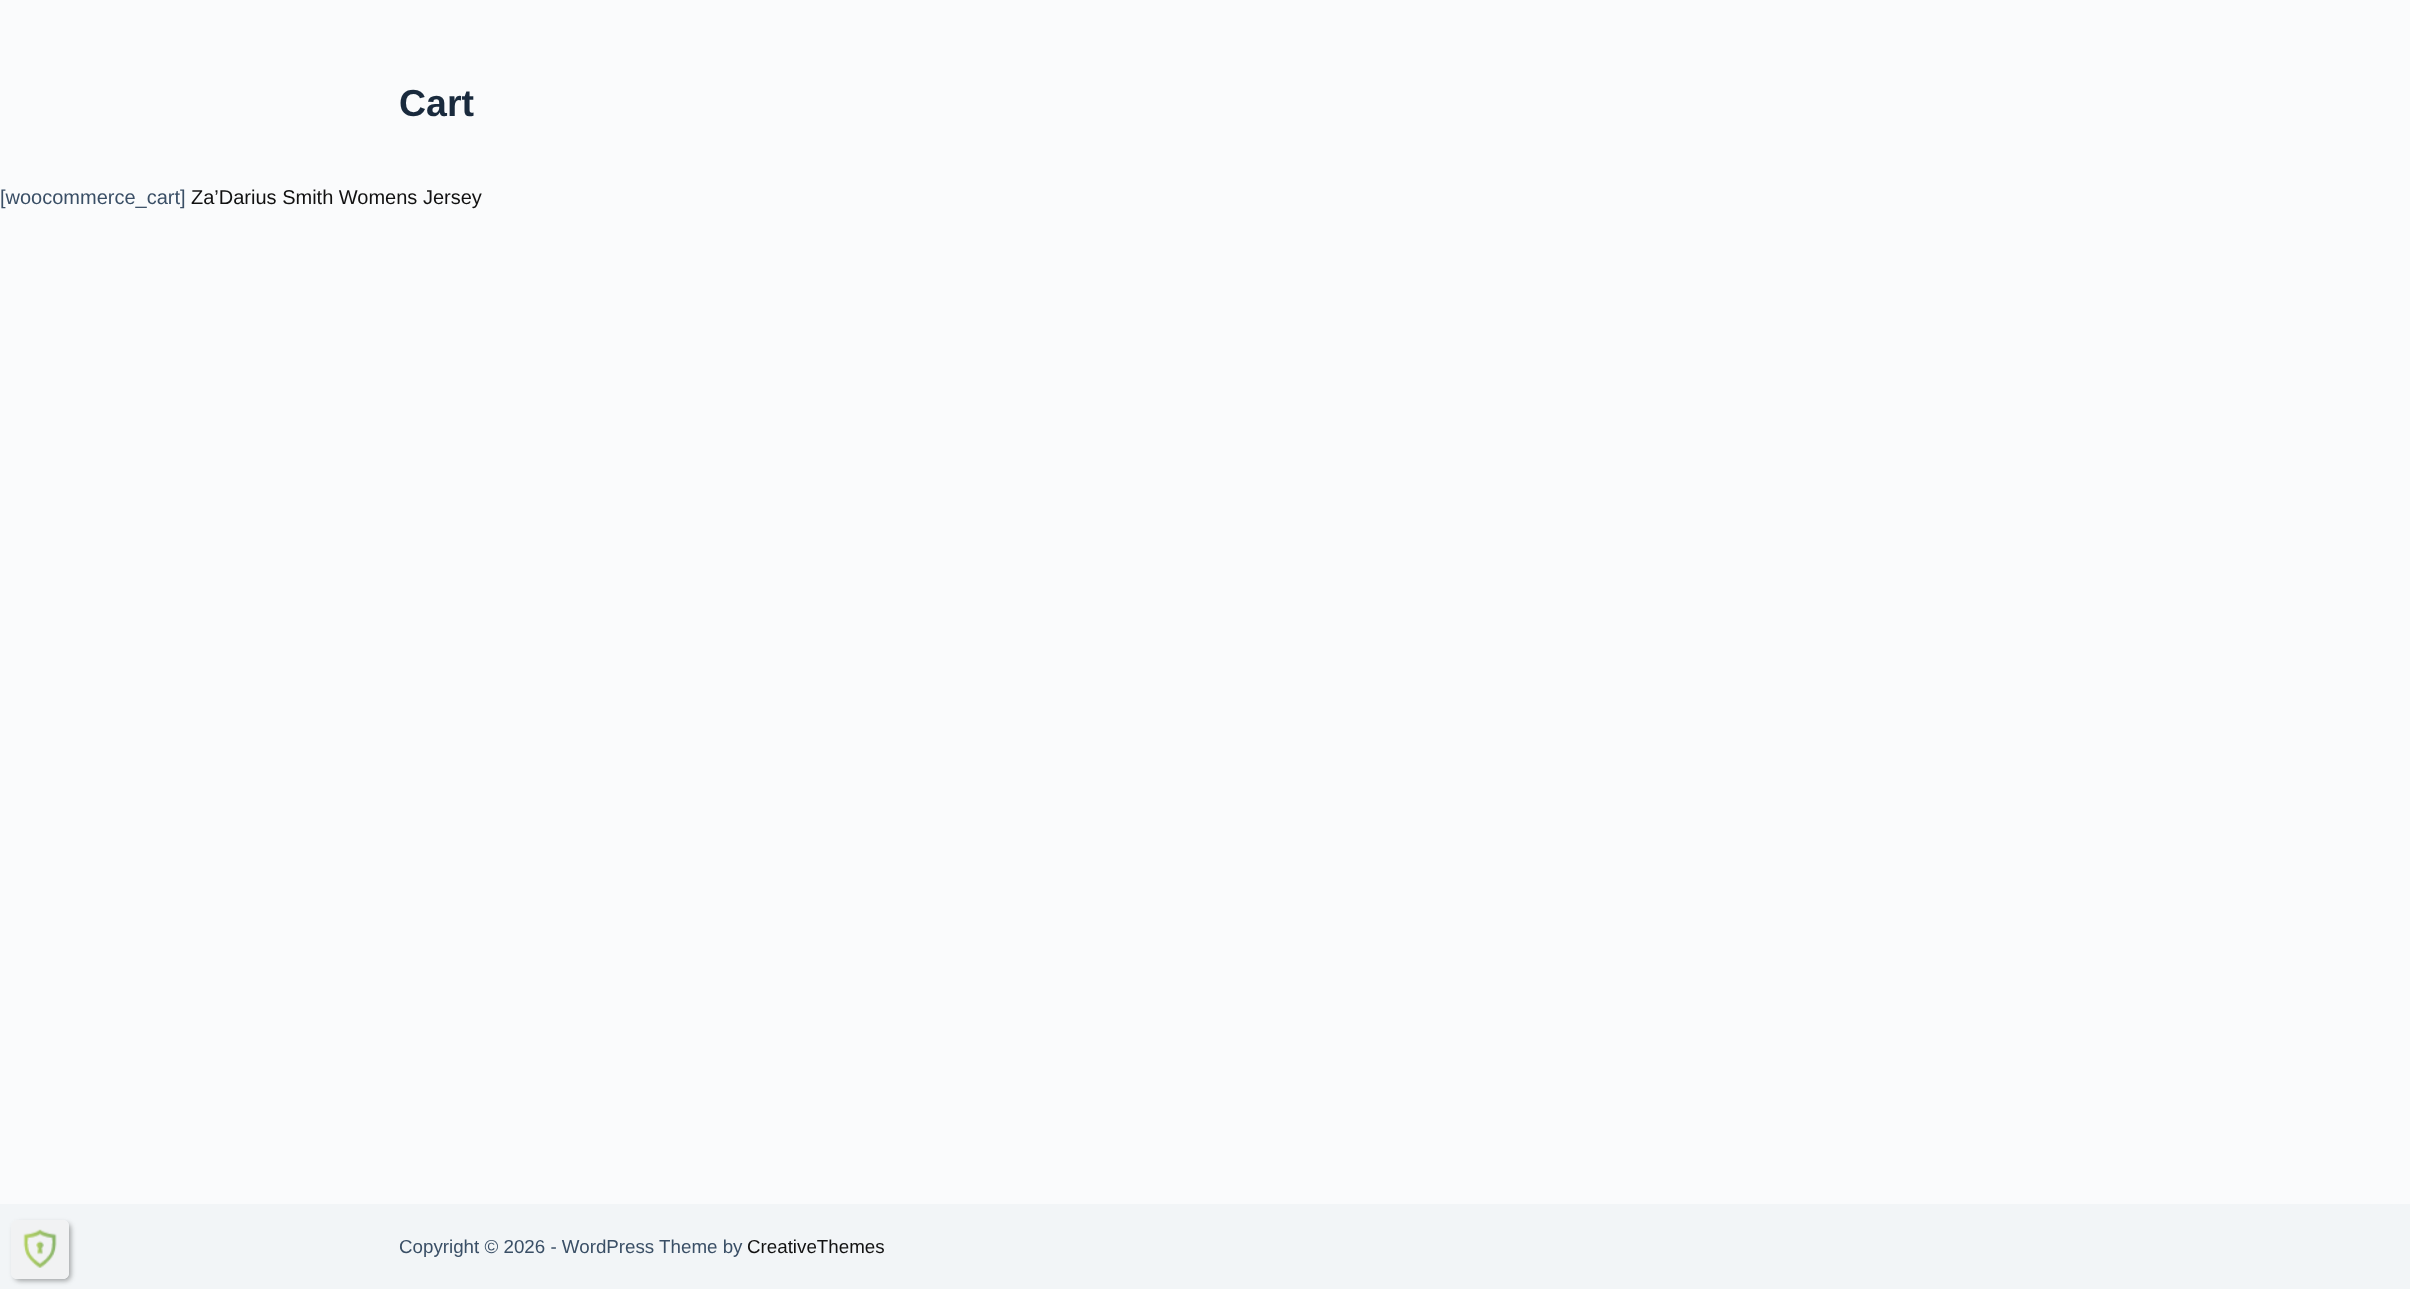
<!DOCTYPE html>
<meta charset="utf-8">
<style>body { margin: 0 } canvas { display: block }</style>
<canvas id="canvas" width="2410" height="1289"></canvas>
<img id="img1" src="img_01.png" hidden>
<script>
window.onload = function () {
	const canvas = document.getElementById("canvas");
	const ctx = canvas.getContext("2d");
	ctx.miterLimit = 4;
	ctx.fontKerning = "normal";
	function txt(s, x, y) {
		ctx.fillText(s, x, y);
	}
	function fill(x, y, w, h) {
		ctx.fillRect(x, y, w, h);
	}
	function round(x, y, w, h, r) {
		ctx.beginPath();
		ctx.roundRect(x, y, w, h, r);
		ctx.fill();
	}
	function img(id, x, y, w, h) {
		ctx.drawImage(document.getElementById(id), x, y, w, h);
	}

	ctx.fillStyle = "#FAFBFC";
	fill(0, 0, 2410, 1289);
	ctx.fillStyle = "#F2F5F7";
	fill(0, 1204, 2410, 85);
	ctx.save();
	ctx.beginPath();
	ctx.moveTo(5, 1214);
	ctx.lineTo(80, 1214);
	ctx.lineTo(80, 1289);
	ctx.lineTo(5, 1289);
	ctx.closePath();
	ctx.moveTo(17, 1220);
	ctx.lineTo(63, 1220);
	ctx.bezierCurveTo(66.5, 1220, 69, 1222.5, 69, 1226);
	ctx.lineTo(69, 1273);
	ctx.bezierCurveTo(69, 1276.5, 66.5, 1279, 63, 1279);
	ctx.lineTo(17, 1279);
	ctx.bezierCurveTo(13.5, 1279, 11, 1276.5, 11, 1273);
	ctx.lineTo(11, 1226);
	ctx.bezierCurveTo(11, 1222.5, 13.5, 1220, 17, 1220);
	ctx.closePath();
	ctx.clip("evenodd");
	ctx.fillStyle = "rgba(73, 74, 74, 0.47)";
	ctx.filter = "blur(2.5px)";
	ctx.beginPath();
	ctx.roundRect(14, 1223, 57, 58, 6);
	ctx.fill();
	ctx.filter = "none";
	ctx.restore();
	ctx.fillStyle = "rgba(241, 242, 243, 0.99)";
	round(11, 1220, 58, 59, 6);
	img("img1", 23, 1229, 34, 39);
	ctx.font = "bold 37.5px Liberation Sans";
	ctx.fillStyle = "#192A3D";
	txt("Cart", 399, 116);
	ctx.font = "20px Liberation Sans";
	ctx.fillStyle = "#3A4F66";
	txt("[woocommerce_cart]", 0, 204);
	ctx.fillStyle = "#111111";
	txt("Za’Darius Smith Womens Jersey", 191, 204);
	ctx.font = "18.75px Liberation Sans";
	ctx.fillStyle = "#3A4F66";
	txt("Copyright © 2026 - WordPress Theme by", 399, 1253);
	ctx.fillStyle = "#111111";
	txt("CreativeThemes", 747, 1253);
};
</script>
